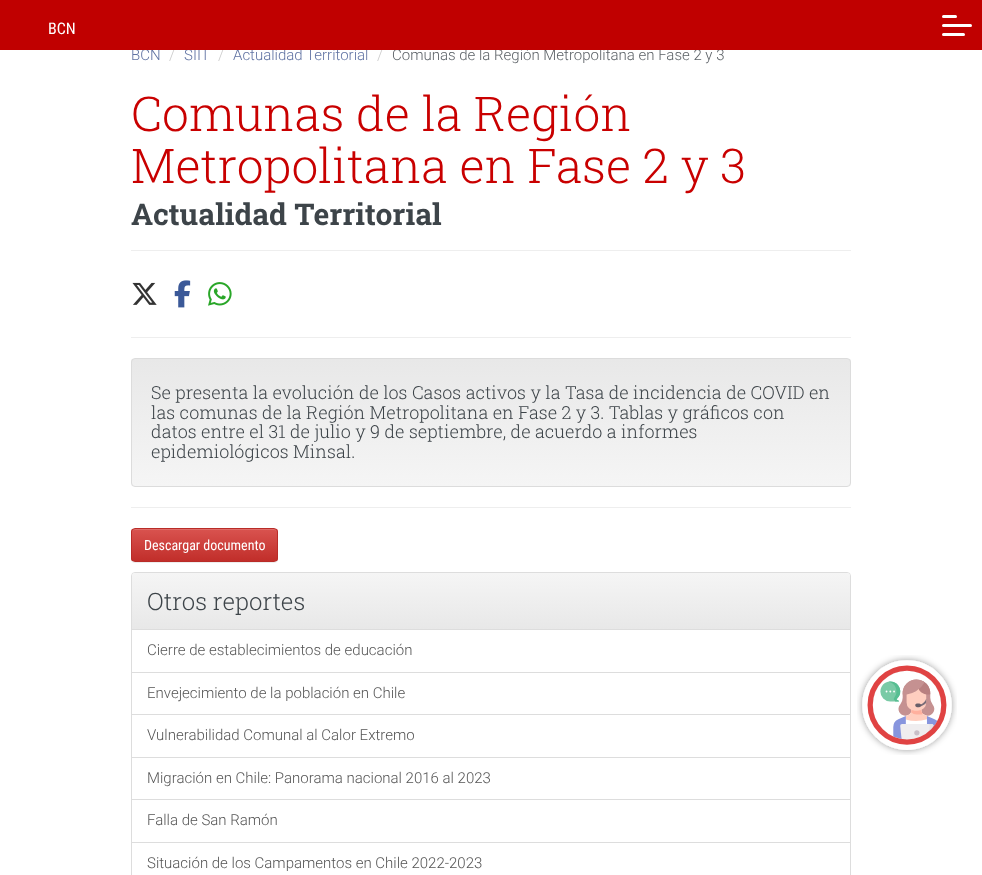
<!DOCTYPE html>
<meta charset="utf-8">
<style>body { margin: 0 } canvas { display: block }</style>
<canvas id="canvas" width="982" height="875"></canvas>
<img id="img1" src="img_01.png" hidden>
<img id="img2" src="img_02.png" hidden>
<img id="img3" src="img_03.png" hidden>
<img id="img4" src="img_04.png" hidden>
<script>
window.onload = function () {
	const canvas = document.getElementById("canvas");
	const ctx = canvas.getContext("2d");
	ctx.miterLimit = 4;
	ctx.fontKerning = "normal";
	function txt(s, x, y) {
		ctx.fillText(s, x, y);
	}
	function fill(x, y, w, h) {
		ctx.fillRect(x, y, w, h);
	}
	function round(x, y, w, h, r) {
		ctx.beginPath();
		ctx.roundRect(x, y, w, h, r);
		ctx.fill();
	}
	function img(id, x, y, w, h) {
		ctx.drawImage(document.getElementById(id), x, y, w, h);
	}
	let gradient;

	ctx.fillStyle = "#FFFFFF";
	fill(0, 0, 982, 875);
	ctx.fillStyle = "#EEEEEE";
	fill(131, 250, 720, 1);
	img("img1", 132, 282, 25, 23);
	img("img2", 174, 280, 17, 28);
	img("img3", 208, 282, 24, 24);
	fill(131, 337, 720, 1);
	ctx.save();
	ctx.beginPath();
	ctx.roundRect(131, 358, 720, 129, 4);
	ctx.clip();
	gradient = ctx.createLinearGradient(491, 359, 491, 486);
	gradient.addColorStop(0, "#E8E8E8");
	gradient.addColorStop(1, "#F5F5F5");
	ctx.fillStyle = gradient;
	fill(131, 359, 720, 127);
	ctx.restore();
	ctx.beginPath();
	ctx.roundRect(131.5, 358.5, 719, 128, 3.5);
	ctx.strokeStyle = "#DCDCDC";
	ctx.stroke();
	fill(131, 507, 720, 1);
	ctx.fillStyle = "rgba(0, 0, 0, 0.07)";
	ctx.filter = "blur(0.5px)";
	ctx.beginPath();
	ctx.roundRect(131, 529, 147, 34, 4);
	ctx.fill();
	ctx.filter = "none";
	ctx.save();
	ctx.beginPath();
	ctx.roundRect(131, 528, 147, 34, 4);
	ctx.clip();
	gradient = ctx.createLinearGradient(205, 529, 205, 561);
	gradient.addColorStop(0, "#D9534F");
	gradient.addColorStop(1, "#C12E2A");
	ctx.fillStyle = gradient;
	fill(131, 529, 147, 32);
	ctx.restore();
	ctx.fillStyle = "#DF6C69";
	ctx.beginPath();
	ctx.moveTo(135, 530);
	ctx.lineTo(274, 530);
	ctx.bezierCurveTo(276, 530, 277, 531, 277, 533);
	ctx.lineTo(277, 532);
	ctx.bezierCurveTo(277, 530, 276, 529, 274, 529);
	ctx.lineTo(135, 529);
	ctx.bezierCurveTo(133, 529, 132, 530, 132, 532);
	ctx.lineTo(132, 533);
	ctx.bezierCurveTo(132, 531, 133, 530, 135, 530);
	ctx.closePath();
	ctx.fill();
	ctx.beginPath();
	ctx.roundRect(131.5, 528.5, 146, 33, 3.5);
	ctx.strokeStyle = "#B92C28";
	ctx.stroke();
	ctx.beginPath();
	ctx.roundRect(131.5, 572.5, 719, 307, 3.5);
	ctx.strokeStyle = "#DDDDDD";
	ctx.stroke();
	gradient = ctx.createLinearGradient(491, 573, 491, 629);
	gradient.addColorStop(0, "#F5F5F5");
	gradient.addColorStop(1, "#E8E8E8");
	ctx.fillStyle = gradient;
	ctx.beginPath();
	ctx.roundRect(132, 573, 718, 56, [3, 3, 0, 0]);
	ctx.fill();
	ctx.fillStyle = "#DDDDDD";
	fill(132, 629, 718, 1);
	fill(132, 672, 718, 1);
	fill(132, 714, 718, 1);
	fill(132, 757, 718, 1);
	fill(132, 799, 718, 1);
	fill(132, 842, 718, 1);
	img("img4", 857, 655, 100, 100);
	ctx.font = "300 15px Roboto";
	ctx.fillStyle = "#6173A3";
	txt("BCN", 131, 60);
	ctx.fillStyle = "#CCCCCC";
	txt("/", 169, 60);
	ctx.fillStyle = "#6173A3";
	txt("SIIT", 184, 60);
	ctx.fillStyle = "#CCCCCC";
	txt("/", 218, 60);
	ctx.fillStyle = "#6173A3";
	txt("Actualidad Territorial", 233, 60);
	ctx.fillStyle = "#CCCCCC";
	txt("/", 377, 60);
	ctx.fillStyle = "#5D6267";
	txt("Comunas de la Región Metropolitana en Fase 2 y 3", 392, 60);
	ctx.fillStyle = "#C00000";
	fill(0, 0, 982, 50);
	ctx.fillStyle = "#FFFFFF";
	round(942, 33, 23, 3, 1.5);
	round(942, 24, 30, 3, 1.5);
	round(942, 15, 15, 3, 1.5);
	ctx.font = "16px Roboto Condensed";
	txt("BCN", 48, 34);
	ctx.font = "300 48px Roboto Slab";
	ctx.fillStyle = "#C90000";
	txt("Comunas de la Región", 131, 131);
	txt("Metropolitana en Fase 2 y 3", 131, 183);
	ctx.font = "bold 30px Roboto Slab";
	ctx.fillStyle = "#3D4449";
	txt("Actualidad Territorial", 131, 225);
	ctx.font = "300 18px Roboto Slab";
	txt("Se presenta la evolución de los Casos activos y la Tasa de incidencia de COVID en", 151, 399);
	txt("las comunas de la Región Metropolitana en Fase 2 y 3. Tablas y gráficos con", 151, 419);
	txt("datos entre el 31 de julio y 9 de septiembre, de acuerdo a informes", 151, 438);
	txt("epidemiológicos Minsal.", 151, 458);
	ctx.font = "14px Roboto Condensed";
	ctx.fillStyle = "#FFFFFF";
	txt("Descargar documento", 144, 550);
	ctx.font = "300 24px Roboto Slab";
	ctx.fillStyle = "#3D4449";
	txt("Otros reportes", 147, 610);
	ctx.font = "300 15px Roboto";
	ctx.fillStyle = "#555555";
	txt("Cierre de establecimientos de educación", 147, 655);
	txt("Envejecimiento de la población en Chile", 147, 698);
	txt("Vulnerabilidad Comunal al Calor Extremo", 147, 740);
	txt("Migración en Chile: Panorama nacional 2016 al 2023", 147, 783);
	txt("Falla de San Ramón", 147, 825);
	txt("Situación de los Campamentos en Chile 2022-2023", 147, 868);
};
</script>
